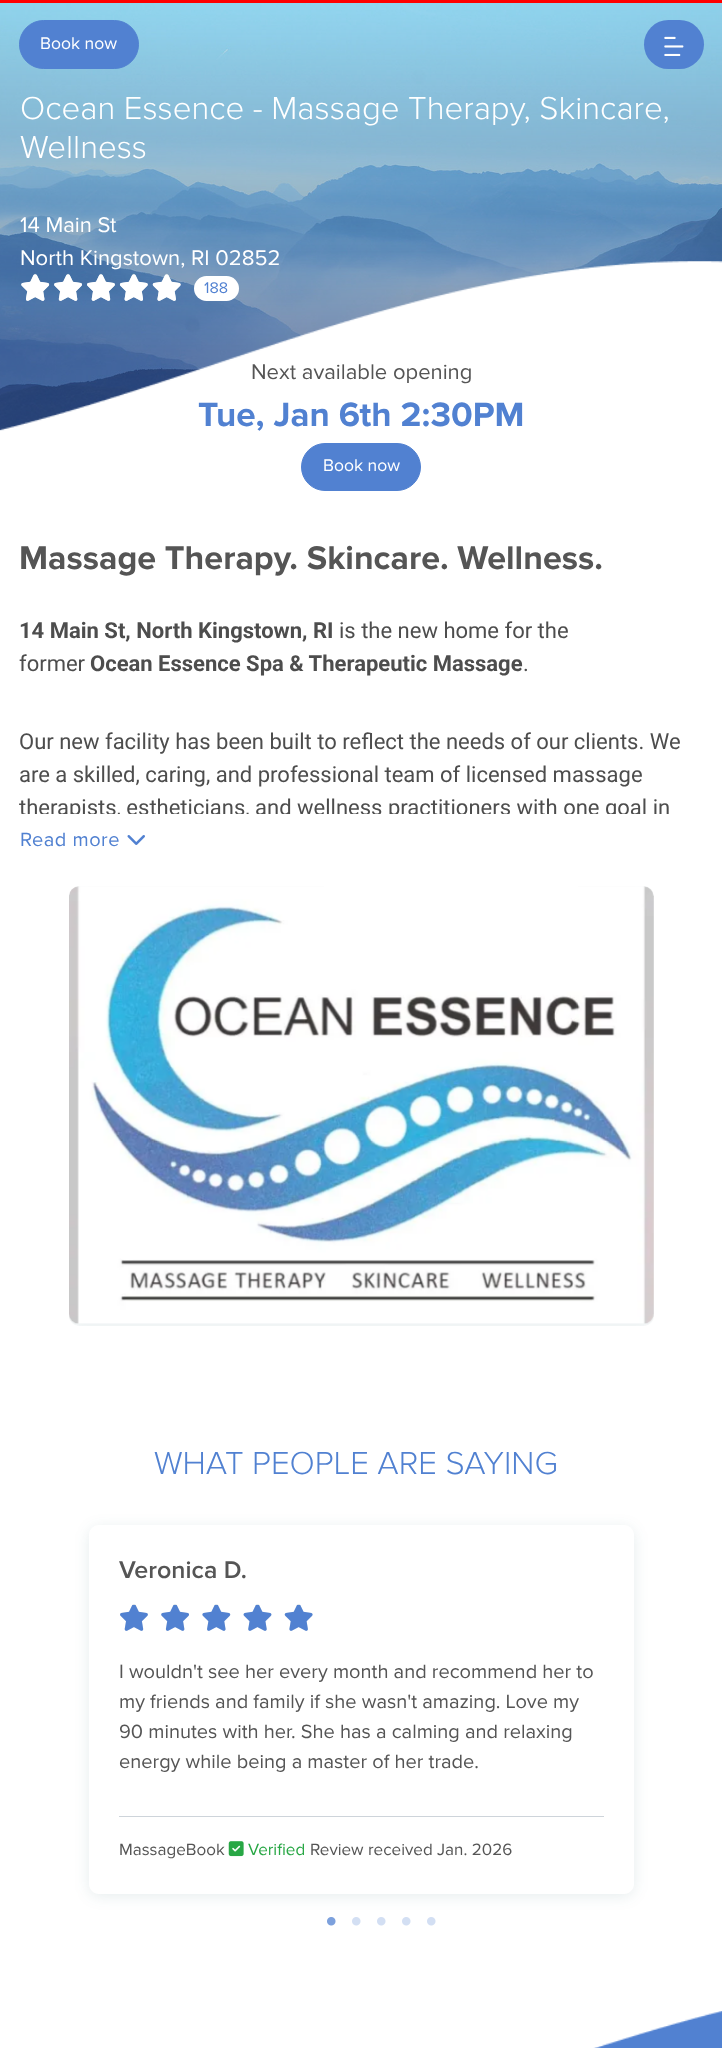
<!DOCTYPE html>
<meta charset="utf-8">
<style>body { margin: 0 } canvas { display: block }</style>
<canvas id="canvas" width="722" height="2048"></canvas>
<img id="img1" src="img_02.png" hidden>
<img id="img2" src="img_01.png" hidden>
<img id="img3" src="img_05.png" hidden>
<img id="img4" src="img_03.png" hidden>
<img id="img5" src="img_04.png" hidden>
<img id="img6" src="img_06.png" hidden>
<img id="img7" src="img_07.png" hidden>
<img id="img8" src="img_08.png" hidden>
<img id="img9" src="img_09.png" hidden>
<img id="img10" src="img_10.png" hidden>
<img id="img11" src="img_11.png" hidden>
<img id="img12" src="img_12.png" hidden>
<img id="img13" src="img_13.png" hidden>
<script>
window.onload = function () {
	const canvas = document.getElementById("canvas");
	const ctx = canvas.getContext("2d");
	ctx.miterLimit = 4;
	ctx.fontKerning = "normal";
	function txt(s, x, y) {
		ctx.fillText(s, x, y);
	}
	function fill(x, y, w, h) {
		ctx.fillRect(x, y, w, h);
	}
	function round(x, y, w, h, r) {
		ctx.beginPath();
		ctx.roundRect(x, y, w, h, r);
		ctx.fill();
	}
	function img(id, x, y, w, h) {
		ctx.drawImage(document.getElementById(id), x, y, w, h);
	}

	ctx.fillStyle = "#FFFFFF";
	fill(0, 0, 722, 2048);
	ctx.fillStyle = "#FF0000";
	fill(0, 0, 722, 3);
	img("img1", 0, 3, 722, 428);
	ctx.fillStyle = "#5181D1";
	ctx.beginPath();
	ctx.roundRect(19.5, 20.5, 119, 48, 24);
	ctx.fill();
	ctx.strokeStyle = "#5181D1";
	ctx.stroke();
	round(644, 20, 60, 49, 24.5);
	img("img2", 664, 36, 20, 20);
	img("img3", 0, 261, 722, 239);
	img("img4", 21, 273, 160, 28);
	img("img5", 21, 275, 160, 26);
	ctx.fillStyle = "#FFFFFF";
	round(194, 276, 45, 25, 12.5);
	ctx.fillStyle = "#5181D1";
	ctx.beginPath();
	ctx.roundRect(301.5, 443.5, 119, 47, 23.5);
	ctx.fill();
	ctx.stroke();
	img("img6", 127, 835, 18, 10);
	ctx.save();
	ctx.beginPath();
	ctx.roundRect(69, 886, 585, 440, 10);
	ctx.clip();
	ctx.fillStyle = "rgba(3, 70, 74, 0.1)";
	ctx.filter = "blur(7.5px)";
	ctx.beginPath();
	ctx.roundRect(69, 889, 585, 437, 10);
	ctx.fill();
	ctx.filter = "none";
	ctx.restore();
	img("img7", 69, 886, 585, 438);
	ctx.save();
	ctx.beginPath();
	ctx.moveTo(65, 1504);
	ctx.lineTo(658, 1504);
	ctx.lineTo(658, 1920);
	ctx.lineTo(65, 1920);
	ctx.closePath();
	ctx.moveTo(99, 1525);
	ctx.lineTo(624, 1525);
	ctx.bezierCurveTo(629.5, 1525, 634, 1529.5, 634, 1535);
	ctx.lineTo(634, 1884);
	ctx.bezierCurveTo(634, 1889.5, 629.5, 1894, 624, 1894);
	ctx.lineTo(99, 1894);
	ctx.bezierCurveTo(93.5, 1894, 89, 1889.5, 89, 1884);
	ctx.lineTo(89, 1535);
	ctx.bezierCurveTo(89, 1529.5, 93.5, 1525, 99, 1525);
	ctx.closePath();
	ctx.clip("evenodd");
	ctx.fillStyle = "rgba(3, 70, 74, 0.1)";
	ctx.filter = "blur(7.5px)";
	ctx.beginPath();
	ctx.roundRect(89, 1528, 545, 368, 10);
	ctx.fill();
	ctx.filter = "none";
	ctx.restore();
	img("img8", 120, 1604, 193, 27);
	img("img9", 120, 1605, 193, 26);
	ctx.fillStyle = "#CED4DA";
	fill(119, 1816, 485, 1);
	img("img10", 228, 1841, 16, 16);
	img("img11", 327, 1917, 9, 9);
	img("img12", 352, 1917, 9, 9);
	img("img12", 377, 1917, 9, 9);
	img("img12", 402, 1917, 9, 9);
	img("img12", 427, 1917, 9, 9);
	ctx.fillStyle = "#5181D1";
	fill(593, 2011, 129, 37);
	img("img13", 0, 1964, 722, 84);
	ctx.font = "17.5px Proxima Nova";
	ctx.fillStyle = "#FFFFFF";
	txt("Book now", 40, 49);
	ctx.font = "300 33px Proxima Nova";
	txt("Ocean Essence - Massage Therapy, Skincare,", 20, 119);
	txt("Wellness", 20, 158);
	ctx.font = "22px Proxima Nova";
	txt("14 Main St", 20, 232);
	txt("North Kingstown, RI 02852", 20, 265);
	ctx.font = "16px Proxima Nova";
	ctx.fillStyle = "#5181D1";
	txt("188", 204, 293);
	ctx.font = "22px Proxima Nova";
	ctx.fillStyle = "#555555";
	txt("Next available opening", 251, 379);
	ctx.font = "bold 35px Proxima Nova";
	ctx.fillStyle = "#5181D1";
	txt("Tue, Jan 6th 2:30PM", 198, 426);
	ctx.font = "17.5px Proxima Nova";
	ctx.fillStyle = "#FFFFFF";
	txt("Book now", 323, 471);
	ctx.font = "bold 34px Proxima Nova";
	ctx.fillStyle = "#555555";
	txt("Massage Therapy. Skincare. Wellness.", 19, 569);
	ctx.font = "bold 22px Roboto";
	ctx.fillStyle = "#4D4D4D";
	txt("14 Main St, North Kingstown, RI", 19, 638);
	ctx.font = "22px Roboto";
	txt("is the new home for the", 339, 638);
	txt("former", 19, 671);
	ctx.font = "bold 22px Roboto";
	txt("Ocean Essence Spa & Therapeutic Massage", 90, 671);
	ctx.font = "22px Roboto";
	txt(".", 523, 671);
	txt("Our new facility has been built to reflect the needs of our clients. We", 19, 749);
	txt("are a skilled, caring, and professional team of licensed massage", 19, 782);
	ctx.save();
	ctx.beginPath();
	ctx.rect(19, 591, 685, 223);
	ctx.clip();
	txt("therapists, estheticians, and wellness practitioners with one goal in", 19, 815);
	ctx.restore();
	ctx.letterSpacing = "0.5px";
	ctx.font = "20px Proxima Nova";
	ctx.fillStyle = "#5181D1";
	txt("Read more", 20, 846);
	ctx.letterSpacing = "0px";
	ctx.font = "300 33px Proxima Nova";
	txt("WHAT PEOPLE ARE SAYING", 154, 1474);
	ctx.font = "600 25px Proxima Nova";
	ctx.fillStyle = "#555555";
	txt("Veronica D.", 119, 1578);
	ctx.font = "20px Proxima Nova";
	txt("I wouldn't see her every month and recommend her to", 119, 1678);
	txt("my friends and family if she wasn't amazing. Love my", 119, 1708);
	txt("90 minutes with her. She has a calming and relaxing", 119, 1738);
	txt("energy while being a master of her trade.", 119, 1768);
	ctx.font = "17px Proxima Nova";
	txt("MassageBook", 119, 1855);
	ctx.fillStyle = "#28A745";
	txt("Verified", 248, 1855);
	ctx.fillStyle = "#555555";
	txt("Review received Jan. 2026", 310, 1855);
};
</script>
